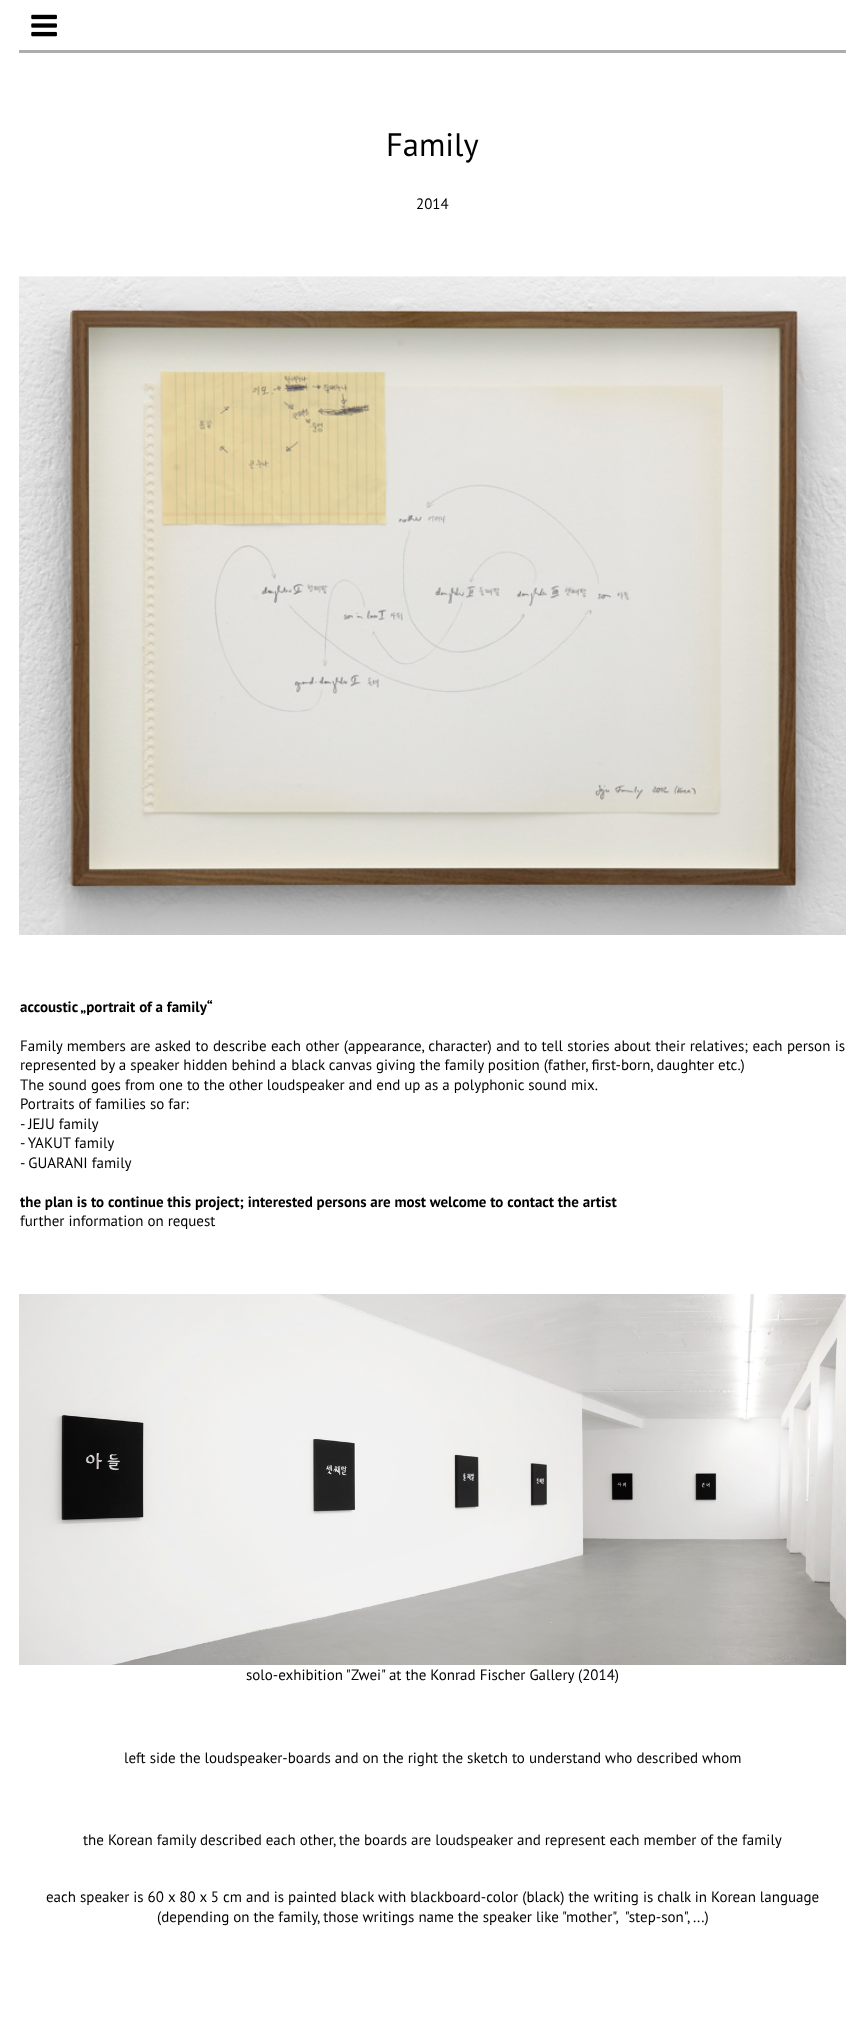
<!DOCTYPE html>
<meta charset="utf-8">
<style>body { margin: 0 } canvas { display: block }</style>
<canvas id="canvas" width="864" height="2040"></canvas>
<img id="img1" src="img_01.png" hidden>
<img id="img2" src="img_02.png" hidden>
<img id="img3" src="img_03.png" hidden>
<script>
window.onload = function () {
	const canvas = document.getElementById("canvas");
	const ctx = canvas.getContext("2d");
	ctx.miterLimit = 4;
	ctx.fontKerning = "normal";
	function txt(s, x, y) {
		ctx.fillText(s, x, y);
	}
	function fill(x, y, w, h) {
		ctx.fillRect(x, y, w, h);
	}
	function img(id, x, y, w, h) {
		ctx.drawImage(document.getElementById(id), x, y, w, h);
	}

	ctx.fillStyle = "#FFFFFF";
	fill(0, 0, 864, 2040);
	img("img1", 31, 14, 26, 23);
	ctx.fillStyle = "#ADADAD";
	fill(19, 50, 827, 3);
	img("img2", 19, 276, 827, 659);
	img("img3", 19, 1294, 828, 371);
	ctx.font = "32.5px PT Sans";
	ctx.fillStyle = "#000000";
	txt("Family", 386, 156);
	ctx.font = "15px PT Sans";
	txt("2014", 416, 209);
	ctx.font = "bold 15px PT Sans";
	txt("accoustic „portrait of a family“", 20, 1012);
	ctx.wordSpacing = "0.4px";
	ctx.font = "15px PT Sans";
	txt("Family members are asked to describe each other (appearance, character) and to tell stories about their relatives; each person is", 20, 1051);
	ctx.wordSpacing = "0px";
	txt("represented by a speaker hidden behind a black canvas giving the family position (father, first-born, daughter etc.)", 20, 1070);
	txt("The sound goes from one to the other loudspeaker and end up as a polyphonic sound mix.", 20, 1090);
	txt("Portraits of families so far:", 20, 1109);
	txt("- JEJU family", 20, 1129);
	txt("- YAKUT family", 20, 1148);
	txt("- GUARANI family", 20, 1168);
	ctx.font = "bold 15px PT Sans";
	txt("the plan is to continue this project; interested persons are most welcome to contact the artist", 20, 1207);
	ctx.font = "15px PT Sans";
	txt("further information on request", 20, 1226);
	txt("solo-exhibition \"Zwei\" at the Konrad Fischer Gallery (2014)", 246, 1680);
	txt("left side the loudspeaker-boards and on the right the sketch to understand who described whom", 124, 1763);
	txt("the Korean family described each other, the boards are loudspeaker and represent each member of the family", 83, 1845);
	txt("each speaker is 60 x 80 x 5 cm and is painted black with blackboard-color (black) the writing is chalk in Korean language", 46, 1902);
	txt("(depending on the family, those writings name the speaker like \"mother\",  \"step-son\", ...)", 157, 1922);
};
</script>
